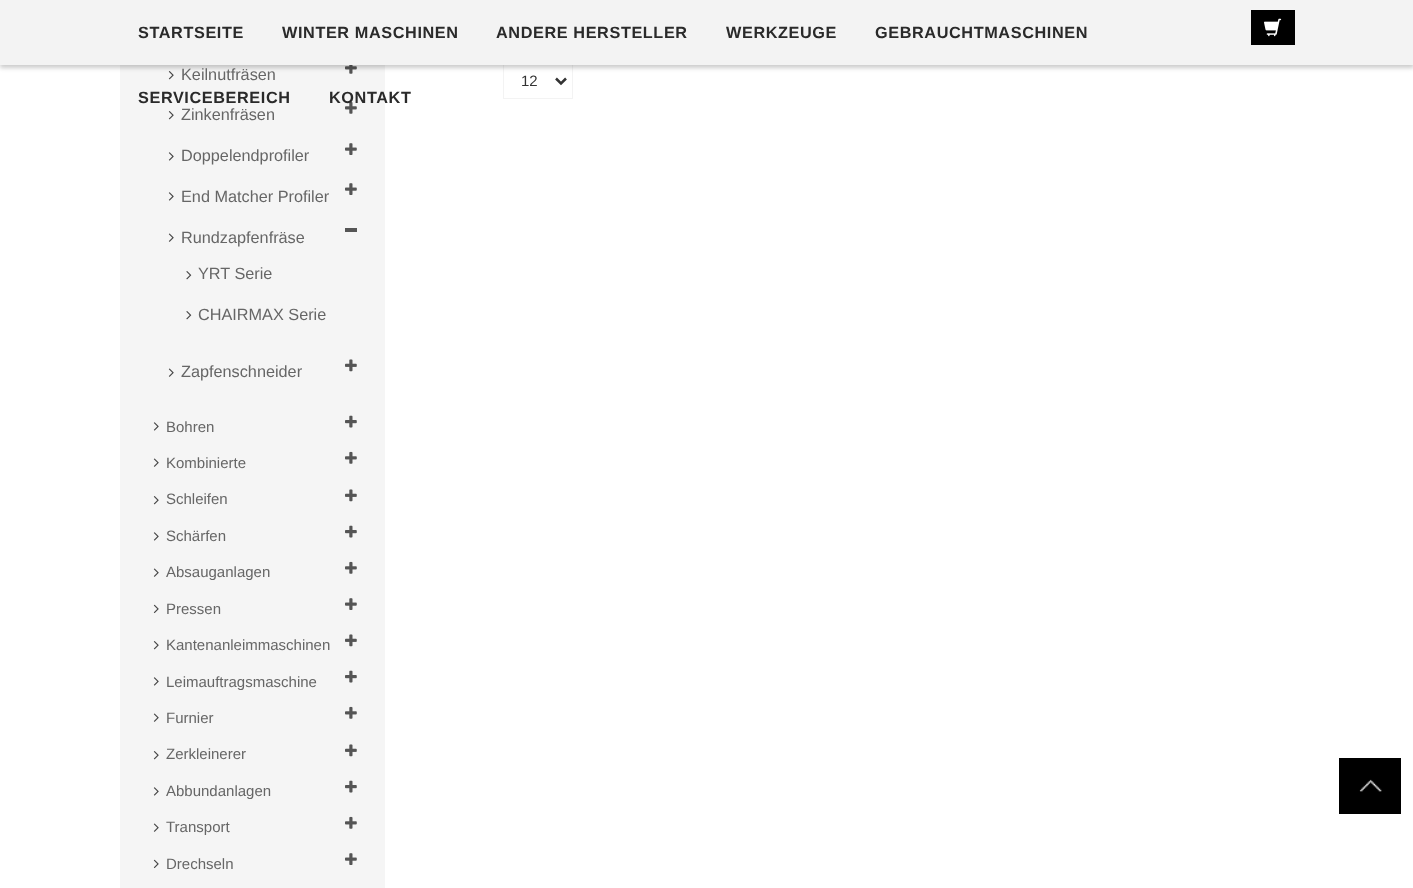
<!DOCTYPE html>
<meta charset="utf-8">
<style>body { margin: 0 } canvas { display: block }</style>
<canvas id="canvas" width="1413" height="888"></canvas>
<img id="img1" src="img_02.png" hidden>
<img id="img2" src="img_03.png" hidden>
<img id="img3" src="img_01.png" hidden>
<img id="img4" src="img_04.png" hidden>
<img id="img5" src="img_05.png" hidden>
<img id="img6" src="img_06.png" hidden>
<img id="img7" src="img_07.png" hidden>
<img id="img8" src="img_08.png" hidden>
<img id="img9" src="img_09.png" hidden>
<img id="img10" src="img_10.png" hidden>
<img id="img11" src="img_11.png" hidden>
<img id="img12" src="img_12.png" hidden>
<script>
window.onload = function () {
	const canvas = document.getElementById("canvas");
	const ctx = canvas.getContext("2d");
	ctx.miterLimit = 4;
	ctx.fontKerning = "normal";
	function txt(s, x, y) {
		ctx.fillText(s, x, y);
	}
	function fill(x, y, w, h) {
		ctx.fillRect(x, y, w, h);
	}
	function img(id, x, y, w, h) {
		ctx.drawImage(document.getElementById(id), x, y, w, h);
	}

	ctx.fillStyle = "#FFFFFF";
	fill(0, 0, 1413, 888);
	ctx.fillStyle = "#F5F5F5";
	fill(120, 65, 265, 823);
	img("img1", 168, 71, 6, 9);
	img("img2", 345, 65, 12, 9);
	ctx.strokeStyle = "#F3F3F3";
	ctx.strokeRect(503.5, 64.5, 69, 34);
	ctx.fillStyle = "rgba(0, 0, 0, 0.2)";
	ctx.filter = "blur(2px)";
	ctx.beginPath();
	ctx.rect(0, 3, 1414, 65);
	ctx.fill();
	ctx.filter = "none";
	ctx.fillStyle = "#F3F3F3";
	fill(0, 0, 1413, 65);
	ctx.fillStyle = "#000000";
	fill(1251, 10, 44, 35);
	img("img3", 1264, 18, 18, 19);
	img("img1", 168, 111, 6, 9);
	img("img4", 345, 101, 12, 13);
	img("img5", 168, 152, 6, 9);
	img("img6", 345, 143, 12, 12);
	img("img5", 168, 192, 6, 9);
	img("img6", 345, 183, 12, 12);
	ctx.fillStyle = "#555555";
	fill(345, 228, 12, 4);
	img("img7", 168, 233, 6, 9);
	img("img8", 186, 271, 6, 9);
	img("img8", 186, 311, 6, 9);
	img("img7", 168, 368, 6, 9);
	img("img9", 345, 359, 12, 13);
	img("img5", 153, 422, 6, 9);
	img("img10", 345, 415, 12, 13);
	img("img7", 153, 458, 6, 9);
	img("img4", 345, 451, 12, 13);
	img("img1", 153, 496, 6, 9);
	img("img9", 345, 489, 12, 13);
	img("img5", 153, 532, 6, 9);
	img("img10", 345, 525, 12, 13);
	img("img7", 153, 568, 6, 9);
	img("img4", 345, 561, 12, 13);
	img("img11", 153, 604, 6, 10);
	img("img6", 345, 598, 12, 12);
	img("img1", 153, 641, 6, 9);
	img("img9", 345, 634, 12, 13);
	img("img5", 153, 677, 6, 9);
	img("img10", 345, 670, 12, 13);
	img("img7", 153, 713, 6, 9);
	img("img4", 345, 706, 12, 13);
	img("img1", 153, 751, 6, 9);
	img("img9", 345, 744, 12, 13);
	img("img5", 153, 787, 6, 9);
	img("img10", 345, 780, 12, 13);
	img("img7", 153, 823, 6, 9);
	img("img4", 345, 816, 12, 13);
	img("img11", 153, 859, 6, 10);
	img("img6", 345, 853, 12, 12);
	ctx.beginPath();
	ctx.moveTo(556, 78.5);
	ctx.lineTo(561, 83.5);
	ctx.lineTo(566, 78.5);
	ctx.strokeStyle = "#333333";
	ctx.lineWidth = 2.5;
	ctx.stroke();
	ctx.fillStyle = "#000000";
	fill(1339, 758, 62, 56);
	img("img12", 1359, 779, 23, 13);
	ctx.letterSpacing = "0.6px";
	ctx.font = "bold 16.25px Liberation Sans";
	ctx.fillStyle = "#2A2A2A";
	txt("STARTSEITE", 138, 38);
	txt("WINTER MASCHINEN", 282, 38);
	txt("ANDERE HERSTELLER", 496, 38);
	txt("WERKZEUGE", 726, 38);
	txt("GEBRAUCHTMASCHINEN", 875, 38);
	txt("SERVICEBEREICH", 138, 103);
	txt("KONTAKT", 329, 103);
	ctx.letterSpacing = "0px";
	ctx.font = "16.25px Liberation Sans";
	ctx.fillStyle = "#666666";
	txt("Keilnutfräsen", 181, 80);
	txt("Zinkenfräsen", 181, 120);
	txt("Doppelendprofiler", 181, 161);
	txt("End Matcher Profiler", 181, 202);
	txt("Rundzapfenfräse", 181, 243);
	txt("YRT Serie", 198, 279);
	txt("CHAIRMAX Serie", 198, 320);
	txt("Zapfenschneider", 181, 377);
	ctx.font = "15px Liberation Sans";
	txt("Bohren", 166, 432);
	txt("Kombinierte", 166, 468);
	txt("Schleifen", 166, 504);
	txt("Schärfen", 166, 541);
	txt("Absauganlagen", 166, 577);
	txt("Pressen", 166, 614);
	txt("Kantenanleimmaschinen", 166, 650);
	txt("Leimauftragsmaschine", 166, 687);
	txt("Furnier", 166, 723);
	txt("Zerkleinerer", 166, 759);
	txt("Abbundanlagen", 166, 796);
	txt("Transport", 166, 832);
	txt("Drechseln", 166, 869);
	ctx.fillStyle = "#333333";
	txt("12", 521, 86);
};
</script>
